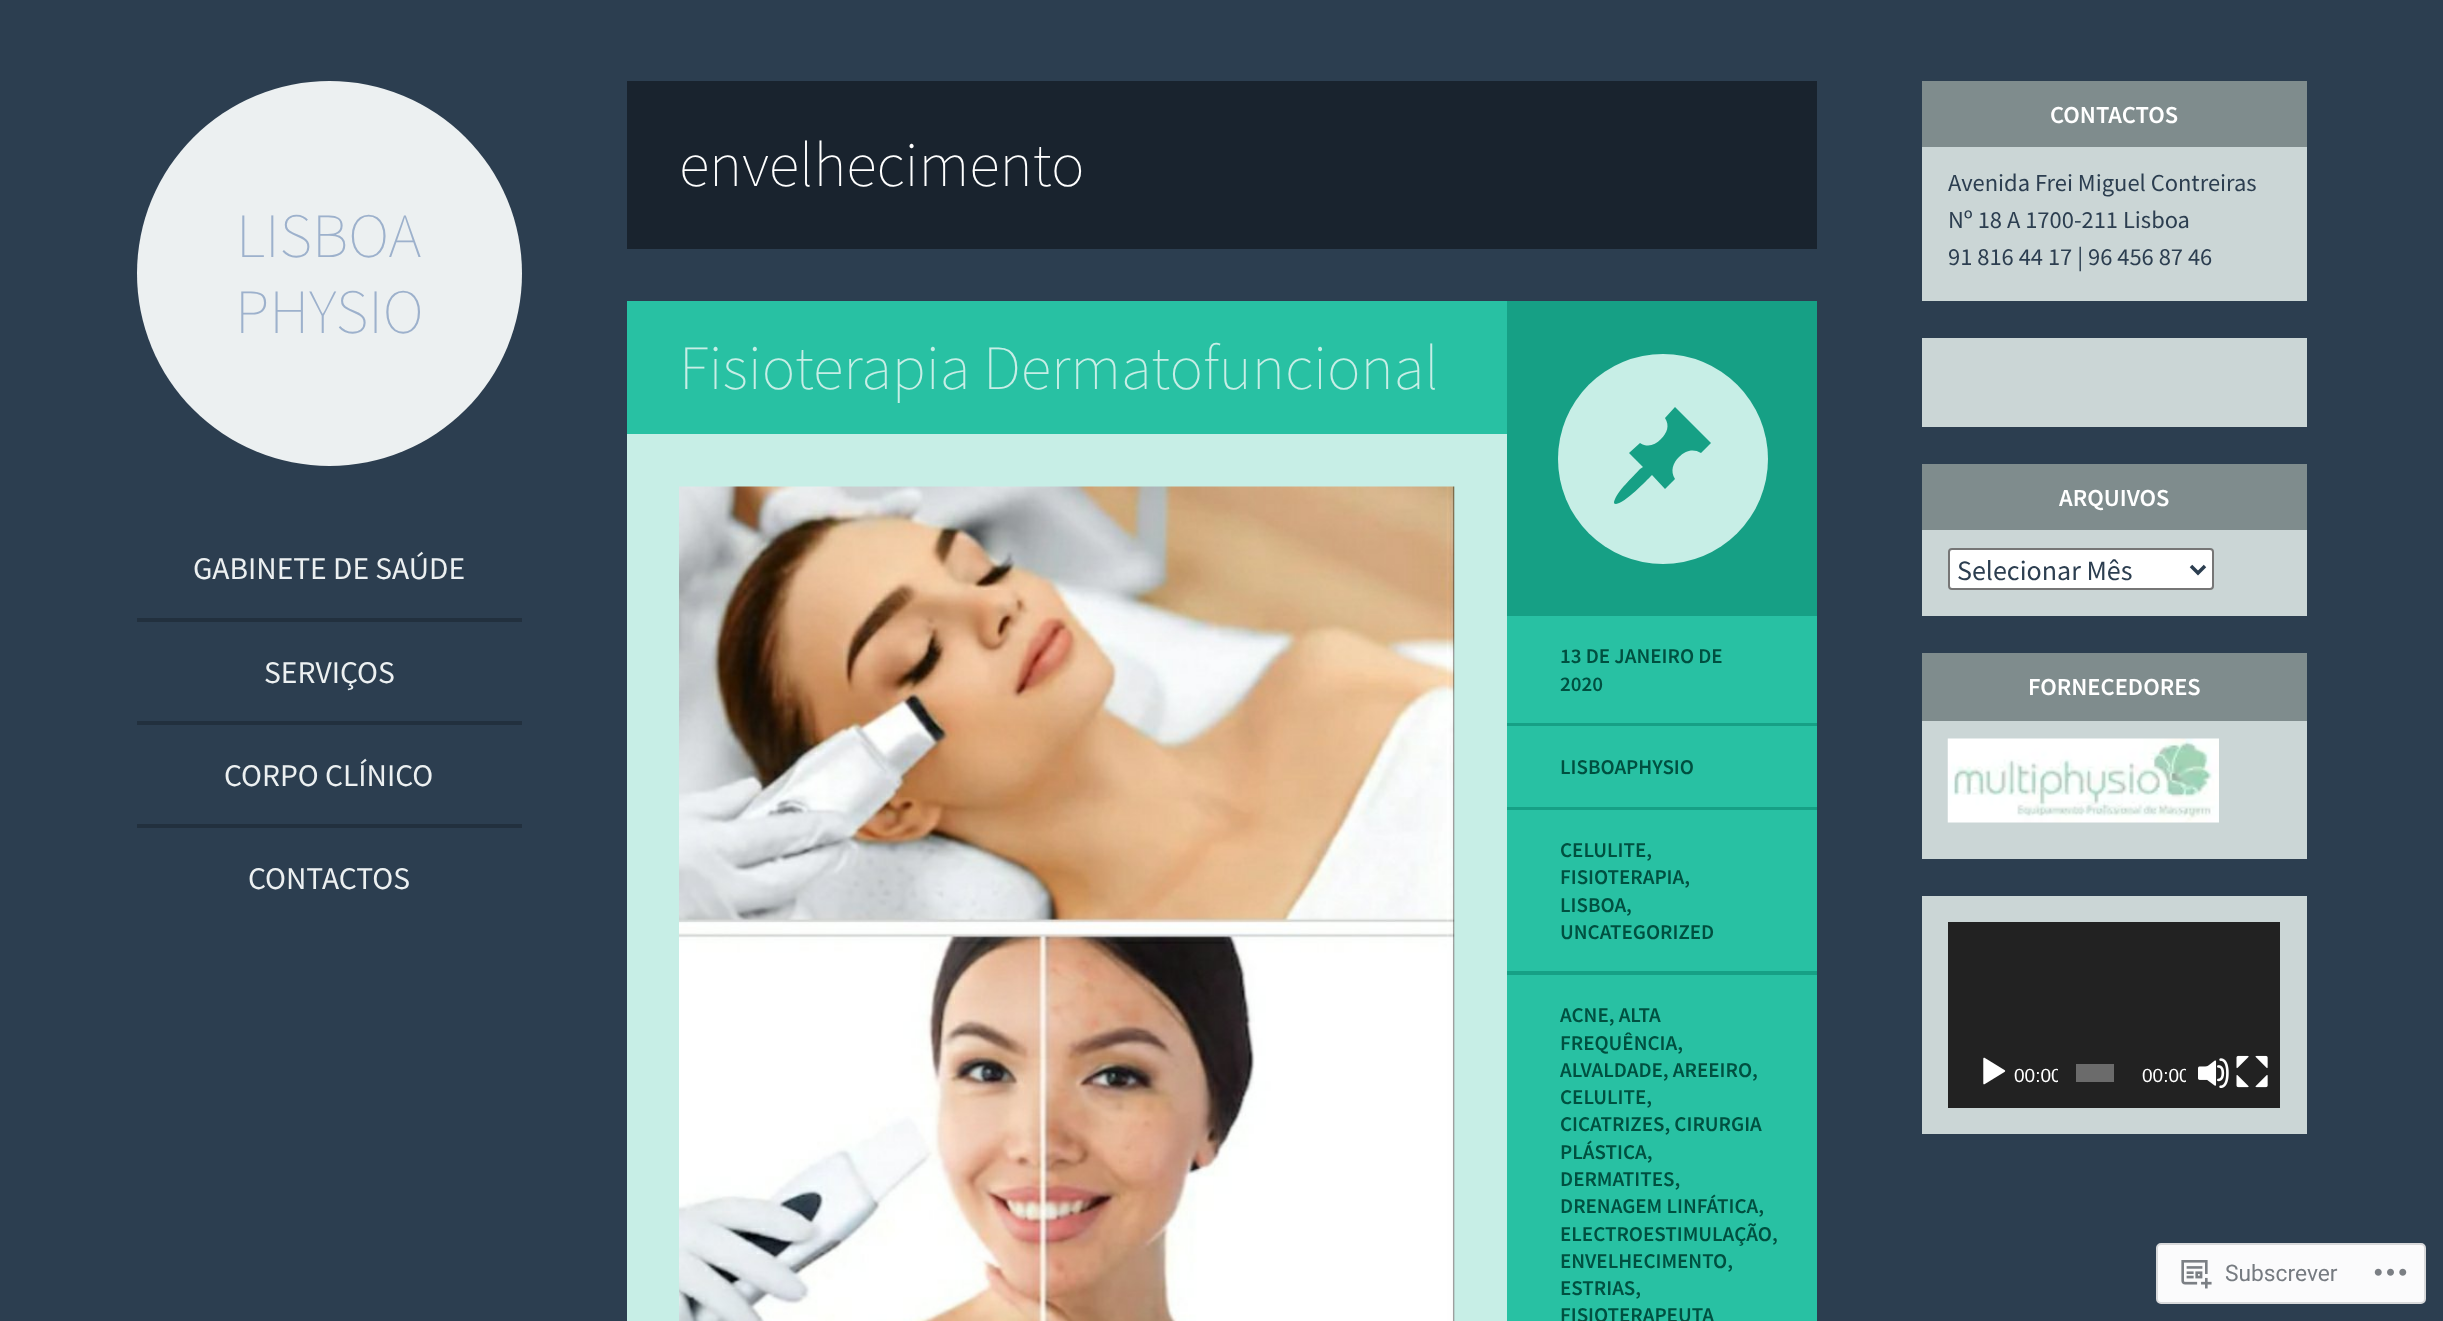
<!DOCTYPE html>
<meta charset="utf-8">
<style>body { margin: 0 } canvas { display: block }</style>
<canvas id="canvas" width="2443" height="1321"></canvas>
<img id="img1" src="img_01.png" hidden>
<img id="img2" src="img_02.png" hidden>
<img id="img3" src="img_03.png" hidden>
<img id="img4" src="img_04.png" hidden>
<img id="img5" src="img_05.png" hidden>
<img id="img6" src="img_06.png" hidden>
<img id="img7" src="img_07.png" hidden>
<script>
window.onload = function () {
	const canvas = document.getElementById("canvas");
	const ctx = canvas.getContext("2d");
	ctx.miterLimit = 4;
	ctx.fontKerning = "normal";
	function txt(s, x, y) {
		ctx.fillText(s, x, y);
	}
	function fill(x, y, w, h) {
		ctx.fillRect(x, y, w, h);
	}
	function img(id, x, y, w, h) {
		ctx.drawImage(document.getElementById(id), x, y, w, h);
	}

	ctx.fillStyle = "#2C3E50";
	fill(0, 0, 2443, 1321);
	ctx.fillStyle = "#ECF0F1";
	ctx.beginPath();
	ctx.arc(329.5, 273.5, 192.5, 0, Math.PI * 2);
	ctx.fill();
	ctx.fillStyle = "#22303E";
	fill(137, 618, 385, 4);
	fill(137, 721, 385, 4);
	fill(137, 824, 385, 4);
	ctx.fillStyle = "#19232E";
	fill(627, 81, 1190, 168);
	ctx.fillStyle = "#C7EEE6";
	fill(627, 434, 880, 887);
	ctx.fillStyle = "#28C1A3";
	fill(627, 301, 880, 133);
	img("img1", 679, 486, 776, 835);
	ctx.fillStyle = "#16A085";
	fill(1507, 301, 310, 674);
	ctx.fillStyle = "#C7EEE6";
	ctx.beginPath();
	ctx.arc(1663, 459, 105, 0, Math.PI * 2);
	ctx.fill();
	ctx.fillStyle = "#16A085";
	ctx.beginPath();
	ctx.moveTo(1665, 418);
	ctx.lineTo(1675, 407);
	ctx.lineTo(1711, 443);
	ctx.lineTo(1701, 453);
	ctx.bezierCurveTo(1693, 448, 1685, 451, 1679, 457);
	ctx.bezierCurveTo(1673, 463, 1670, 471, 1675, 479);
	ctx.lineTo(1665, 489);
	ctx.lineTo(1652, 475);
	ctx.bezierCurveTo(1646, 481, 1625, 503, 1616, 504);
	ctx.bezierCurveTo(1614, 504, 1614, 503, 1614, 502);
	ctx.bezierCurveTo(1617, 491, 1633, 477, 1640, 469);
	ctx.lineTo(1643, 467);
	ctx.lineTo(1629, 453);
	ctx.lineTo(1640, 443);
	ctx.bezierCurveTo(1648, 448, 1655, 445, 1661, 439);
	ctx.bezierCurveTo(1667, 433, 1670, 426, 1665, 418);
	ctx.closePath();
	ctx.fill();
	ctx.fillStyle = "#28C1A3";
	fill(1507, 616, 310, 107);
	fill(1507, 726, 310, 81);
	fill(1507, 810, 310, 161);
	fill(1507, 975, 310, 346);
	ctx.fillStyle = "#CBD6D6";
	fill(1922, 147, 385, 154);
	ctx.fillStyle = "#7F8C8D";
	fill(1922, 81, 385, 66);
	ctx.fillStyle = "#CBD6D6";
	fill(1922, 338, 385, 89);
	fill(1922, 530, 385, 86);
	ctx.fillStyle = "#7F8C8D";
	fill(1922, 464, 385, 66);
	ctx.fillStyle = "#FFFFFF";
	ctx.beginPath();
	ctx.roundRect(1949, 549, 264, 40, 3);
	ctx.fill();
	ctx.strokeStyle = "#767676";
	ctx.lineWidth = 2;
	ctx.stroke();
	ctx.beginPath();
	ctx.moveTo(2191, 566);
	ctx.lineTo(2198, 573);
	ctx.lineTo(2205, 566);
	ctx.strokeStyle = "#2C3E50";
	ctx.lineWidth = 3.5;
	ctx.stroke();
	ctx.fillStyle = "#CBD6D6";
	fill(1922, 721, 385, 138);
	ctx.fillStyle = "#7F8C8D";
	fill(1922, 653, 385, 68);
	img("img2", 1947, 738, 272, 85);
	ctx.fillStyle = "#CBD6D6";
	fill(1922, 896, 385, 238);
	ctx.fillStyle = "#222222";
	fill(1948, 922, 332, 186);
	img("img3", 1983, 1057, 23, 28);
	ctx.fillStyle = "#6B6B6B";
	fill(2076, 1064, 38, 18);
	img("img4", 2198, 1058, 31, 30);
	img("img5", 2236, 1055, 32, 33);
	ctx.fillStyle = "#FBFBFC";
	ctx.beginPath();
	ctx.roundRect(2157, 1244, 268, 59, 4);
	ctx.fill();
	ctx.strokeStyle = "#D8D9DB";
	ctx.lineWidth = 2;
	ctx.stroke();
	img("img6", 2181, 1260, 31, 29);
	img("img7", 2374, 1268, 33, 8);
	ctx.font = "200 63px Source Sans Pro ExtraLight";
	ctx.fillStyle = "#9DB1CC";
	txt("LISBOA", 236, 257);
	txt("PHYSIO", 235, 333);
	ctx.font = "31.5px Source Sans Pro";
	ctx.fillStyle = "#ECF0F1";
	txt("GABINETE DE SAÚDE", 193, 579);
	txt("SERVIÇOS", 264, 683);
	txt("CORPO CLÍNICO", 224, 786);
	txt("CONTACTOS", 248, 889);
	ctx.font = "200 63px Source Sans Pro ExtraLight";
	ctx.fillStyle = "#FFFFFF";
	txt("envelhecimento", 679, 186);
	ctx.fillStyle = "#C7EEE6";
	txt("Fisioterapia Dermatofuncional", 679, 389);
	ctx.font = "600 21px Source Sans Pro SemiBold";
	ctx.fillStyle = "#005040";
	txt("13 DE JANEIRO DE", 1560, 663);
	txt("2020", 1560, 691);
	txt("LISBOAPHYSIO", 1560, 774);
	txt("CELULITE,", 1560, 857);
	txt("FISIOTERAPIA,", 1560, 884);
	txt("LISBOA,", 1560, 912);
	txt("UNCATEGORIZED", 1560, 939);
	txt("ACNE, ALTA", 1560, 1022);
	txt("FREQUÊNCIA,", 1560, 1050);
	txt("ALVALDADE, AREEIRO,", 1560, 1077);
	txt("CELULITE,", 1560, 1104);
	txt("CICATRIZES, CIRURGIA", 1560, 1131);
	txt("PLÁSTICA,", 1560, 1159);
	txt("DERMATITES,", 1560, 1186);
	txt("DRENAGEM LINFÁTICA,", 1560, 1213);
	txt("ELECTROESTIMULAÇÃO,", 1560, 1241);
	txt("ENVELHECIMENTO,", 1560, 1268);
	txt("ESTRIAS,", 1560, 1295);
	txt("FISIOTERAPEUTA", 1560, 1322);
	ctx.font = "600 24.5px Source Sans Pro SemiBold";
	ctx.fillStyle = "#FFFFFF";
	txt("CONTACTOS", 2050, 123);
	ctx.font = "24.5px Source Sans Pro";
	ctx.fillStyle = "#2C3E50";
	txt("Avenida Frei Miguel Contreiras", 1948, 191);
	txt("Nº 18 A 1700-211 Lisboa", 1948, 228);
	txt("91 816 44 17 | 96 456 87 46", 1948, 265);
	ctx.font = "600 24.5px Source Sans Pro SemiBold";
	ctx.fillStyle = "#FFFFFF";
	txt("ARQUIVOS", 2059, 506);
	ctx.font = "28px Source Sans Pro";
	ctx.fillStyle = "#2C3E50";
	txt("Selecionar Mês", 1957, 580);
	ctx.font = "600 24.5px Source Sans Pro SemiBold";
	ctx.fillStyle = "#FFFFFF";
	txt("FORNECEDORES", 2028, 695);
	ctx.save();
	ctx.beginPath();
	ctx.rect(2004, 1038, 54, 70);
	ctx.clip();
	ctx.font = "19px Liberation Sans";
	txt("00:00", 2014, 1082);
	ctx.restore();
	ctx.save();
	ctx.beginPath();
	ctx.rect(2132, 1038, 54, 70);
	ctx.clip();
	ctx.font = "19px Liberation Sans";
	txt("00:00", 2142, 1082);
	ctx.restore();
	ctx.font = "22.75px Roboto";
	ctx.fillStyle = "#767B81";
	txt("Subscrever", 2225, 1281);
};
</script>
